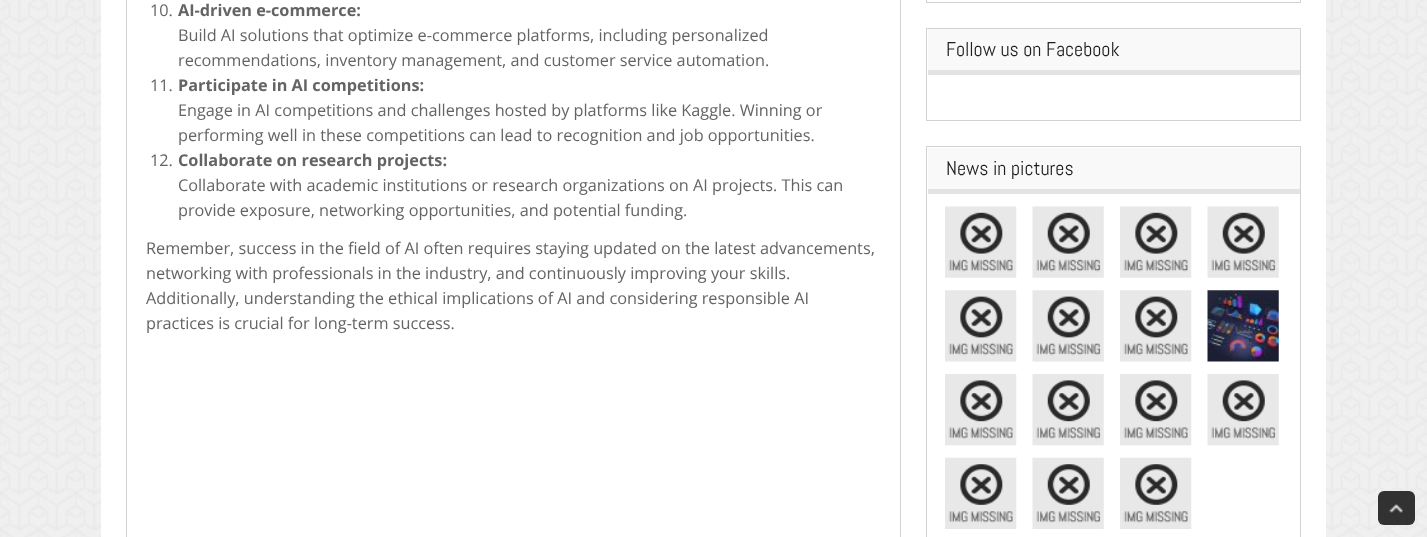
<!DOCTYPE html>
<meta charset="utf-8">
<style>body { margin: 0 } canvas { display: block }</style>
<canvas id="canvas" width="1427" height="537"></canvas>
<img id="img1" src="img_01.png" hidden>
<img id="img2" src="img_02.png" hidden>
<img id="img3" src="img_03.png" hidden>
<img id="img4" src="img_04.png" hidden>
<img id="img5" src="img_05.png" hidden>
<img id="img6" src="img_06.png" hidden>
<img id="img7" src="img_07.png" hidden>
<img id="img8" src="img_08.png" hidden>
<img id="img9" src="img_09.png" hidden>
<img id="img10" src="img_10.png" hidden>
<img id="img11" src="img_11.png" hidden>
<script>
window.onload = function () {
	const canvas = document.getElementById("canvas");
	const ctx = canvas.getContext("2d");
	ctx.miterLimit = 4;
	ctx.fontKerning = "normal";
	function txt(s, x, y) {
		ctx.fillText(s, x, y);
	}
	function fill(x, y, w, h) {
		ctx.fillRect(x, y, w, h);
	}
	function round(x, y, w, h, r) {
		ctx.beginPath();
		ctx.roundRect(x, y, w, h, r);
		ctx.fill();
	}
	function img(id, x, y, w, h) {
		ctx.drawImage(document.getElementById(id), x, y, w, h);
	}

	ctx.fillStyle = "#FFFFFF";
	fill(0, 0, 1427, 537);
	img("img1", 0, 0, 1427, 537);
	fill(101, 0, 1225, 537);
	ctx.strokeStyle = "#D3D2D2";
	ctx.strokeRect(126.5, -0.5, 774, 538);
	ctx.strokeRect(926.5, -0.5, 374, 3);
	ctx.strokeRect(926.5, 28.5, 374, 92);
	ctx.fillStyle = "#F9F9F9";
	fill(928, 29, 372, 41);
	ctx.fillStyle = "#E3E3E3";
	fill(928, 70, 372, 5);
	ctx.strokeRect(926.5, 146.5, 374, 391);
	ctx.fillStyle = "#F9F9F9";
	fill(928, 148, 372, 41);
	ctx.fillStyle = "#E3E3E3";
	fill(928, 189, 372, 5);
	img("img2", 945, 206, 72, 72);
	img("img3", 1032, 206, 72, 72);
	img("img2", 1120, 206, 72, 72);
	img("img3", 1207, 206, 72, 72);
	img("img4", 945, 290, 72, 72);
	img("img5", 1032, 290, 72, 72);
	img("img4", 1120, 290, 72, 72);
	img("img6", 1207, 290, 72, 72);
	img("img7", 945, 374, 72, 72);
	img("img8", 1032, 374, 72, 72);
	img("img7", 1120, 374, 72, 72);
	img("img8", 1207, 374, 72, 72);
	img("img9", 945, 457, 72, 72);
	img("img10", 1032, 457, 72, 72);
	img("img9", 1120, 457, 72, 72);
	ctx.fillStyle = "rgba(39, 39, 39, 0.95)";
	round(1378, 491, 37, 34, 6);
	img("img11", 1389, 504, 14, 9);
	ctx.font = "16.25px Open Sans";
	ctx.fillStyle = "#646464";
	txt("10.", 150, 16);
	ctx.font = "bold 16.25px Open Sans";
	txt("AI-driven e-commerce:", 178, 16);
	ctx.font = "16.25px Open Sans";
	txt("Build AI solutions that optimize e-commerce platforms, including personalized", 178, 41);
	txt("recommendations, inventory management, and customer service automation.", 178, 66);
	txt("11.", 150, 91);
	ctx.font = "bold 16.25px Open Sans";
	txt("Participate in AI competitions:", 178, 91);
	ctx.font = "16.25px Open Sans";
	txt("Engage in AI competitions and challenges hosted by platforms like Kaggle. Winning or", 178, 116);
	txt("performing well in these competitions can lead to recognition and job opportunities.", 178, 141);
	txt("12.", 150, 166);
	ctx.font = "bold 16.25px Open Sans";
	txt("Collaborate on research projects:", 178, 166);
	ctx.font = "16.25px Open Sans";
	txt("Collaborate with academic institutions or research organizations on AI projects. This can", 178, 191);
	txt("provide exposure, networking opportunities, and potential funding.", 178, 216);
	txt("Remember, success in the field of AI often requires staying updated on the latest advancements,", 146, 254);
	txt("networking with professionals in the industry, and continuously improving your skills.", 146, 279);
	txt("Additionally, understanding the ethical implications of AI and considering responsible AI", 146, 304);
	txt("practices is crucial for long-term success.", 146, 329);
	ctx.font = "20px Abel";
	ctx.fillStyle = "#1E1E1E";
	txt("Follow us on Facebook", 946, 56);
	txt("News in pictures", 946, 175);
};
</script>
